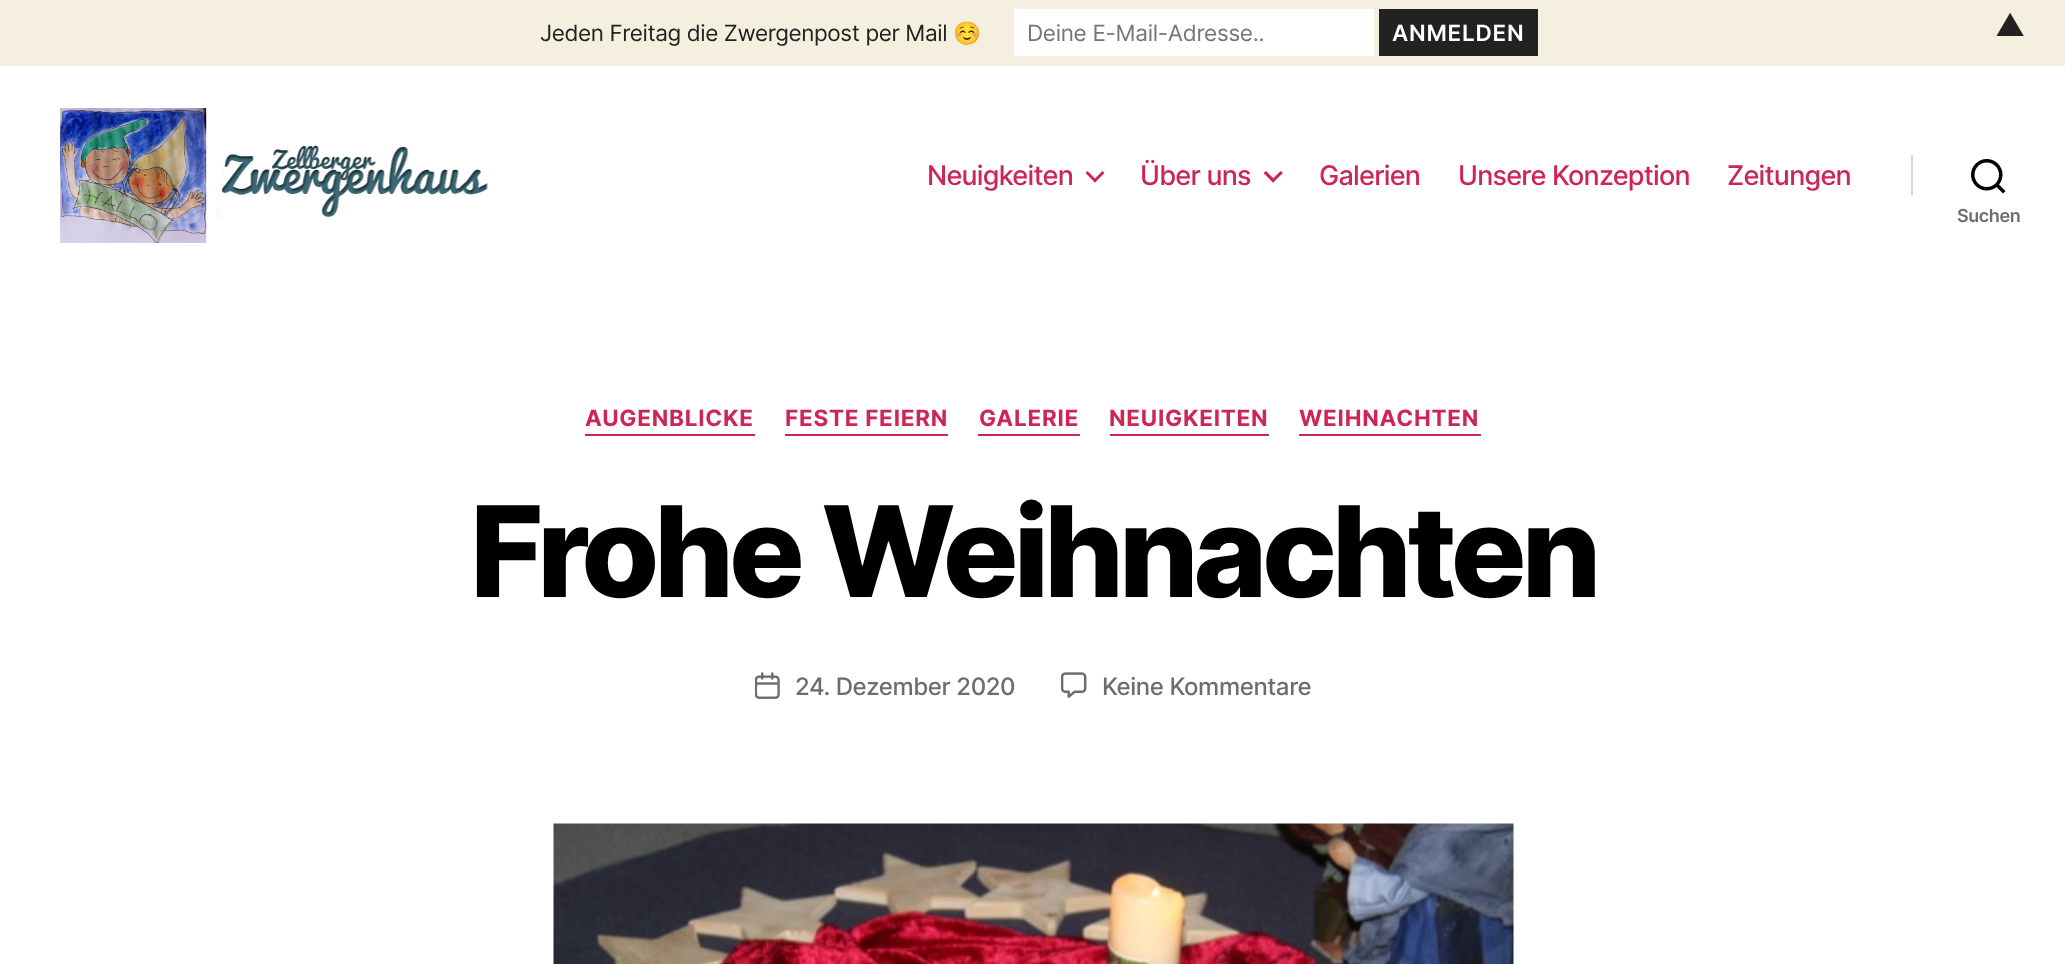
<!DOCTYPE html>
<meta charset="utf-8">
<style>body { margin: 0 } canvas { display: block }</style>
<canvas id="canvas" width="2065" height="964"></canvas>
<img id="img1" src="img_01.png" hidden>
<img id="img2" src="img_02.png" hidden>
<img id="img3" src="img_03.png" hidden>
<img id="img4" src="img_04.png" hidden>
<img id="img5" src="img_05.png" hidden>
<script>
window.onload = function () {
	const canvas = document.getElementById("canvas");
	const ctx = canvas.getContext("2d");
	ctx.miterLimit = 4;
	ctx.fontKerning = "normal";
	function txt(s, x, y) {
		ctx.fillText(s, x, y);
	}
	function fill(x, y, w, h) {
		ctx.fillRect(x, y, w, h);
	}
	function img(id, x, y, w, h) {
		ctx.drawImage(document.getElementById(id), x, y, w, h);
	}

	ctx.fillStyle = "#F5EFE0";
	fill(0, 0, 2065, 964);
	ctx.fillStyle = "#FFFFFF";
	fill(1014, 9, 360, 47);
	ctx.fillStyle = "#222222";
	fill(1379, 9, 159, 47);
	ctx.fillStyle = "#FFFFFF";
	fill(0, 66, 2065, 898);
	img("img1", 60, 108, 428, 135);
	ctx.fillStyle = "#CD2653";
	ctx.beginPath();
	ctx.moveTo(1085.5, 173);
	ctx.lineTo(1087.5, 171);
	ctx.lineTo(1097, 180.5);
	ctx.lineTo(1095, 182.5);
	ctx.closePath();
	ctx.fill();
	ctx.beginPath();
	ctx.moveTo(1093, 180.5);
	ctx.lineTo(1102.5, 171);
	ctx.lineTo(1104.5, 173);
	ctx.lineTo(1095, 182.5);
	ctx.closePath();
	ctx.fill();
	ctx.beginPath();
	ctx.moveTo(1263.5, 173);
	ctx.lineTo(1266, 171);
	ctx.lineTo(1275.5, 180.5);
	ctx.lineTo(1273, 182.5);
	ctx.closePath();
	ctx.fill();
	ctx.beginPath();
	ctx.moveTo(1271, 180.5);
	ctx.lineTo(1280.5, 171);
	ctx.lineTo(1283, 173);
	ctx.lineTo(1273, 182.5);
	ctx.closePath();
	ctx.fill();
	ctx.fillStyle = "#DCD7CA";
	fill(1911, 155, 2, 40);
	img("img2", 1971, 159, 35, 35);
	ctx.fillStyle = "#CD2653";
	fill(585, 434, 170, 2);
	fill(785, 434, 163, 2);
	fill(978, 434, 102, 2);
	fill(1110, 434, 159, 2);
	fill(1299, 434, 182, 2);
	img("img3", 755, 672, 25, 27);
	img("img4", 1061, 672, 26, 26);
	img("img5", 553, 823, 961, 141);
	ctx.letterSpacing = "-0.4px";
	ctx.font = "22.5px Inter";
	ctx.fillStyle = "#222222";
	txt("Jeden Freitag die Zwergenpost per Mail", 540, 41);
	ctx.font = "22.5px Noto Color Emoji";
	txt("☺️", 953, 41);
	ctx.letterSpacing = "-0.3px";
	ctx.font = "22.5px Inter";
	ctx.fillStyle = "#757575";
	txt("Deine E-Mail-Adresse..", 1027, 41);
	ctx.letterSpacing = "0.75px";
	ctx.font = "600 22.5px Inter";
	ctx.fillStyle = "#FFFFFF";
	txt("ANMELDEN", 1392, 41);
	ctx.letterSpacing = "-0.4px";
	ctx.font = "30px Inter";
	ctx.fillStyle = "#222222";
	txt("▲", 1995, 36);
	ctx.letterSpacing = "-0.75px";
	ctx.font = "500 27px Inter";
	ctx.fillStyle = "#CD2653";
	txt("Neuigkeiten", 927, 185);
	txt("Über uns", 1140, 185);
	txt("Galerien", 1319, 185);
	txt("Unsere Konzeption", 1458, 185);
	txt("Zeitungen", 1727, 185);
	ctx.letterSpacing = "-0.4px";
	ctx.font = "600 18px Inter";
	ctx.fillStyle = "#6D6D6D";
	txt("Suchen", 1957, 222);
	ctx.letterSpacing = "0.75px";
	ctx.font = "bold 22.5px Inter";
	ctx.fillStyle = "#CD2653";
	txt("AUGENBLICKE", 585, 426);
	txt("FESTE FEIERN", 785, 426);
	txt("GALERIE", 979, 426);
	txt("NEUIGKEITEN", 1109, 426);
	txt("WEIHNACHTEN", 1299, 426);
	ctx.letterSpacing = "-5.25px";
	ctx.font = "800 126px Inter";
	ctx.fillStyle = "#000000";
	txt("Frohe Weihnachten", 470, 597);
	ctx.letterSpacing = "-0.4px";
	ctx.font = "500 24px Inter";
	ctx.fillStyle = "#6D6D6D";
	txt("24. Dezember 2020", 795, 695);
	txt("Keine Kommentare", 1102, 695);
};
</script>
